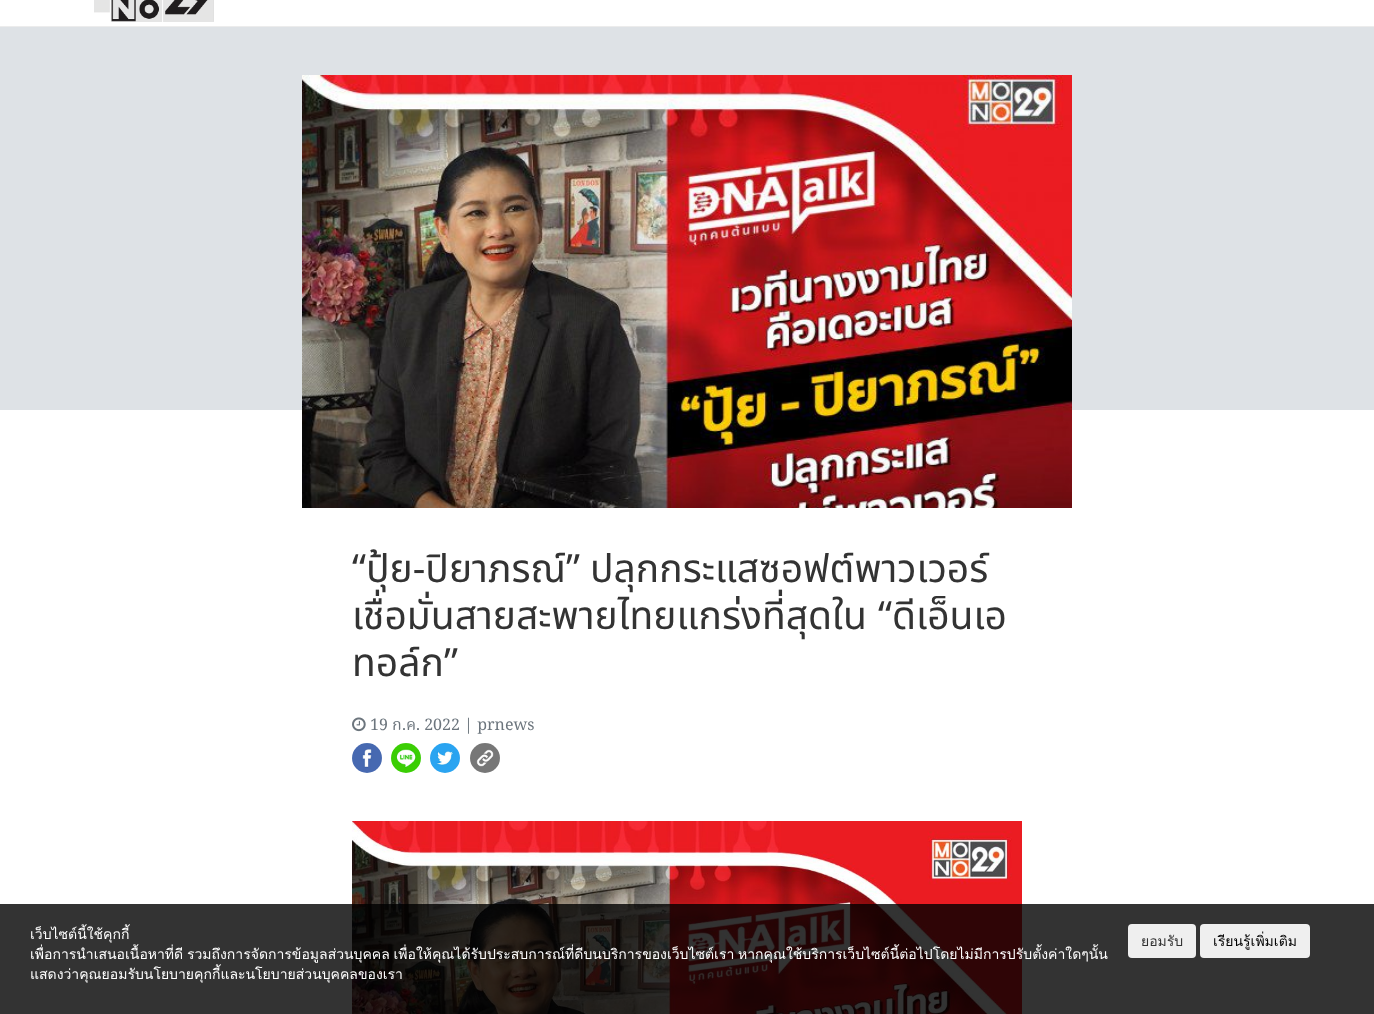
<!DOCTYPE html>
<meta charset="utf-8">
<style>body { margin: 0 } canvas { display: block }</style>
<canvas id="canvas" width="1374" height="1014"></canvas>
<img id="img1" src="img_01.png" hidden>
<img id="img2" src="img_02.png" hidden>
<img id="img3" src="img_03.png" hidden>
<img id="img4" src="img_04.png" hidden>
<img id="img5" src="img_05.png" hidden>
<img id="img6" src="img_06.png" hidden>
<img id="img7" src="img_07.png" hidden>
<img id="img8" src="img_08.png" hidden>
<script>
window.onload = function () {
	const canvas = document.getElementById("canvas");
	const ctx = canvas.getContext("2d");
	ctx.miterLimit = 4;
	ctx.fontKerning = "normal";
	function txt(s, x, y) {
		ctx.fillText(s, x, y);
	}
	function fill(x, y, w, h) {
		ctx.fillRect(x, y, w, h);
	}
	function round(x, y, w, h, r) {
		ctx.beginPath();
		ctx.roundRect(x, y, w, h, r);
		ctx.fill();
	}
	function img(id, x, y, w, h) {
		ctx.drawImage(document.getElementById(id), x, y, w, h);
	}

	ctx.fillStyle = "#FFFFFF";
	fill(0, 0, 1374, 1014);
	ctx.fillStyle = "#ECECEC";
	fill(0, 26, 1374, 1);
	img("img1", 94, 0, 120, 22);
	ctx.fillStyle = "#DEE2E6";
	fill(0, 27, 1374, 383);
	img("img2", 302, 75, 770, 433);
	img("img3", 352, 717, 14, 15);
	img("img4", 352, 743, 30, 30);
	img("img5", 391, 743, 30, 30);
	img("img6", 430, 743, 30, 30);
	img("img7", 470, 743, 30, 30);
	img("img8", 352, 821, 670, 193);
	ctx.fillStyle = "rgba(0, 0, 0, 0.8)";
	fill(0, 904, 1374, 110);
	ctx.fillStyle = "#EFEFEF";
	round(1128, 924, 68, 34, 4);
	round(1200, 924, 110, 34, 4);
	ctx.font = "39px Noto Sans Thai";
	ctx.fillStyle = "#333333";
	txt("ปลุกกระแสซอฟต์พาวเวอร์", 590, 582);
	ctx.font = "39px Noto Sans";
	txt("“", 352, 582);
	ctx.font = "39px Noto Sans Thai";
	txt("ปุ้ย-ปิยาภรณ์", 366, 582);
	ctx.font = "39px Noto Sans";
	txt("”", 566, 582);
	ctx.font = "39px Noto Sans Thai";
	txt("เชื่อมั่นสายสะพายไทยแกร่งที่สุดใน", 352, 629);
	ctx.font = "39px Noto Sans";
	txt("“", 878, 629);
	ctx.font = "39px Noto Sans Thai";
	txt("ดีเอ็นเอ", 892, 629);
	txt("ทอล์ก", 352, 676);
	ctx.font = "39px Noto Sans";
	txt("”", 444, 676);
	ctx.font = "16px Noto Serif";
	ctx.fillStyle = "#6C757D";
	txt("19", 370, 730);
	ctx.font = "16px Noto Serif Thai";
	txt("ก ค", 392, 730);
	ctx.font = "16px Noto Serif";
	txt(". 2022 | prnews", 416, 730);
	txt(".", 402, 730);
	ctx.font = "14px Loma";
	ctx.fillStyle = "#FFFFFF";
	txt("เว็บไซต์นี้ใช้คุกกี้", 30, 939);
	ctx.wordSpacing = "-1px";
	txt("เพื่อการนำเสนอเนื้อหาที่ดี รวมถึงการจัดการข้อมูลส่วนบุคคล เพื่อให้คุณได้รับประสบการณ์ที่ดีบนบริการของเว็บไซต์เรา หากคุณใช้บริการเว็บไซต์นี้ต่อไปโดยไม่มีการปรับตั้งค่าใดๆนั้น", 30, 959);
	ctx.wordSpacing = "0px";
	txt("แสดงว่าคุณยอมรับนโยบายคุกกี้และนโยบายส่วนบุคคลของเรา", 30, 979);
	ctx.fillStyle = "#333333";
	txt("ยอมรับ", 1141, 946);
	ctx.fillStyle = "#000000";
	txt("เรียนรู้เพิ่มเติม", 1213, 946);
};
</script>
